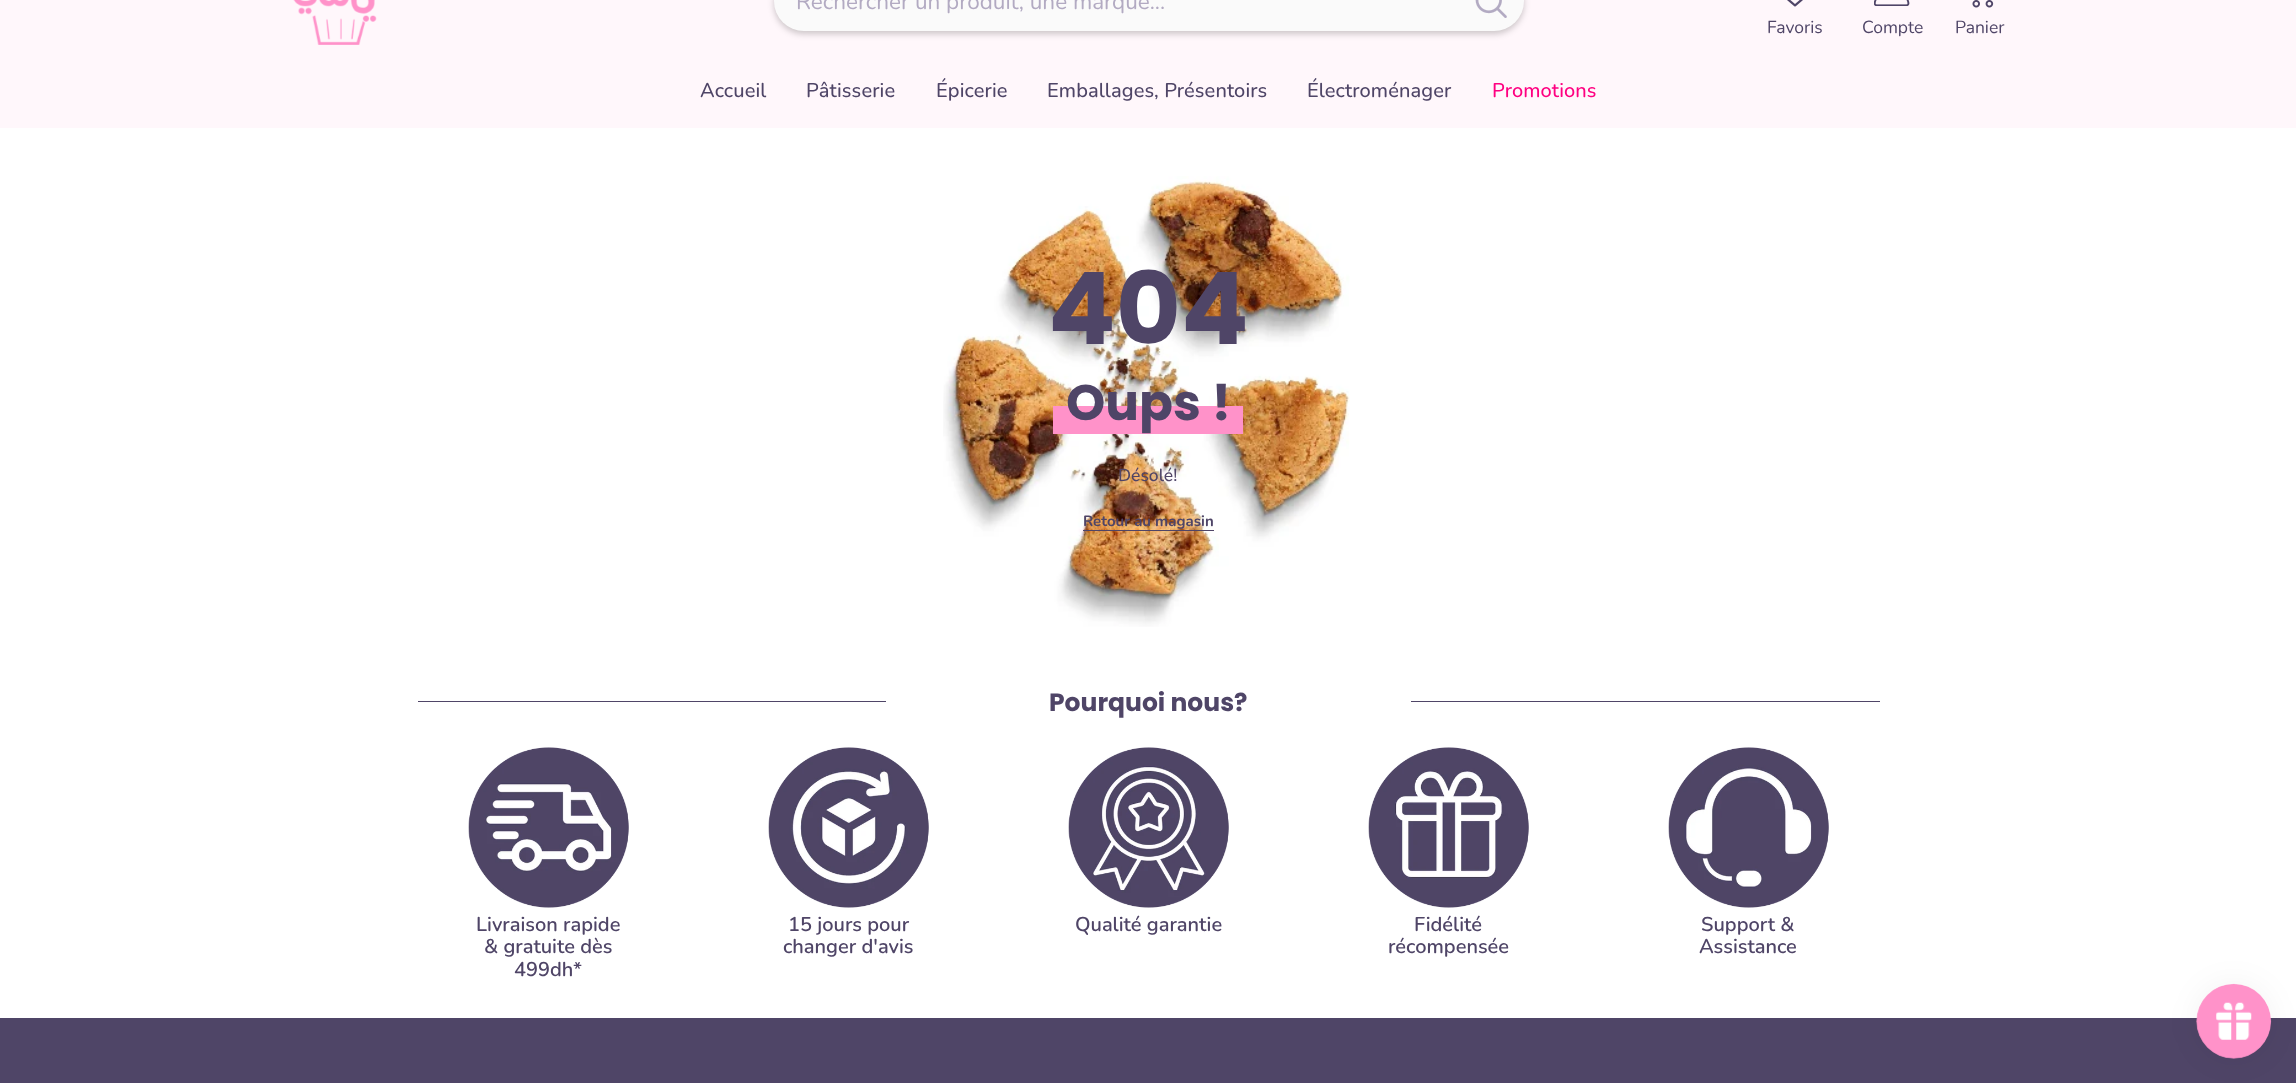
<!DOCTYPE html>
<meta charset="utf-8">
<style>body { margin: 0 } canvas { display: block }</style>
<canvas id="canvas" width="2296" height="1083"></canvas>
<img id="img1" src="img_01.png" hidden>
<img id="img2" src="img_02.png" hidden>
<img id="img3" src="img_03.png" hidden>
<img id="img4" src="img_04.png" hidden>
<img id="img5" src="img_05.png" hidden>
<img id="img6" src="img_06.png" hidden>
<img id="img7" src="img_07.png" hidden>
<img id="img8" src="img_08.png" hidden>
<img id="img9" src="img_09.png" hidden>
<img id="img10" src="img_10.png" hidden>
<img id="img11" src="img_11.png" hidden>
<img id="img12" src="img_12.png" hidden>
<script>
window.onload = function () {
	const canvas = document.getElementById("canvas");
	const ctx = canvas.getContext("2d");
	ctx.miterLimit = 4;
	ctx.fontKerning = "normal";
	function txt(s, x, y) {
		ctx.fillText(s, x, y);
	}
	function fill(x, y, w, h) {
		ctx.fillRect(x, y, w, h);
	}
	function round(x, y, w, h, r) {
		ctx.beginPath();
		ctx.roundRect(x, y, w, h, r);
		ctx.fill();
	}
	function img(id, x, y, w, h) {
		ctx.drawImage(document.getElementById(id), x, y, w, h);
	}

	ctx.fillStyle = "#FFFFFF";
	fill(0, 0, 2296, 1083);
	ctx.fillStyle = "#FFF7FB";
	fill(0, 0, 2296, 128);
	img("img1", 293, 0, 84, 45);
	ctx.fillStyle = "rgba(0, 0, 0, 0.2)";
	ctx.filter = "blur(3px)";
	ctx.beginPath();
	ctx.roundRect(774, -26, 750, 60, 30);
	ctx.fill();
	ctx.filter = "none";
	ctx.fillStyle = "#FAFAFA";
	round(774, -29, 750, 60, 30);
	img("img2", 1475, 0, 32, 18);
	img("img3", 1787, 0, 16, 7);
	img("img4", 1874, 0, 36, 6);
	img("img5", 1972, 0, 22, 8);
	img("img6", 943, 176, 407, 451);
	ctx.fillStyle = "#FF92C9";
	fill(1053, 406, 190, 28);
	ctx.fillStyle = "#4F4567";
	fill(1083, 530, 131, 1);
	fill(418, 701, 1462, 1);
	ctx.fillStyle = "#FFFFFF";
	fill(886, 701, 525, 1);
	img("img7", 468, 747, 161, 161);
	img("img8", 768, 747, 161, 161);
	img("img9", 1068, 747, 161, 161);
	img("img10", 1368, 747, 161, 161);
	img("img11", 1668, 747, 161, 161);
	ctx.fillStyle = "#4F4567";
	fill(0, 1018, 2296, 65);
	ctx.fillStyle = "rgba(0, 0, 0, 0.05)";
	ctx.filter = "blur(15.5px)";
	ctx.beginPath();
	ctx.roundRect(2196, 984, 75, 75, 37.5);
	ctx.fill();
	ctx.filter = "none";
	img("img12", 2196, 983, 76, 76);
	ctx.font = "22.5px Nunito";
	ctx.fillStyle = "#B2AAC2";
	txt("Rechercher un produit, une marque...", 796, 9);
	ctx.font = "17.5px Nunito";
	ctx.fillStyle = "#4F4567";
	txt("Favoris", 1767, 33);
	txt("Compte", 1862, 33);
	txt("Panier", 1955, 33);
	ctx.letterSpacing = "0.1px";
	ctx.font = "500 20px Nunito";
	txt("Accueil", 700, 97);
	txt("Pâtisserie", 806, 97);
	txt("Épicerie", 936, 97);
	txt("Emballages, Présentoirs", 1047, 97);
	txt("Électroménager", 1307, 97);
	ctx.fillStyle = "#FF0081";
	txt("Promotions", 1492, 97);
	ctx.letterSpacing = "0px";
	ctx.font = "bold 100px Poppins";
	ctx.fillStyle = "#4F4567";
	txt("404", 1048, 344);
	ctx.font = "bold 50px Poppins";
	txt("Oups !", 1066, 420);
	ctx.font = "500 17.5px Nunito";
	txt("Désolé!", 1118, 481);
	ctx.font = "bold 15px Nunito";
	txt("Retour au magasin", 1083, 526);
	ctx.font = "bold 25px Poppins";
	txt("Pourquoi nous?", 1049, 711);
	ctx.font = "600 20px Nunito";
	txt("Livraison rapide", 476, 931);
	txt("& gratuite dès", 484, 953);
	txt("499dh*", 514, 976);
	txt("15 jours pour", 788, 931);
	txt("changer d'avis", 783, 953);
	txt("Qualité garantie", 1075, 931);
	txt("Fidélité", 1414, 931);
	txt("récompensée", 1388, 953);
	txt("Support &", 1701, 931);
	txt("Assistance", 1699, 953);
};
</script>
